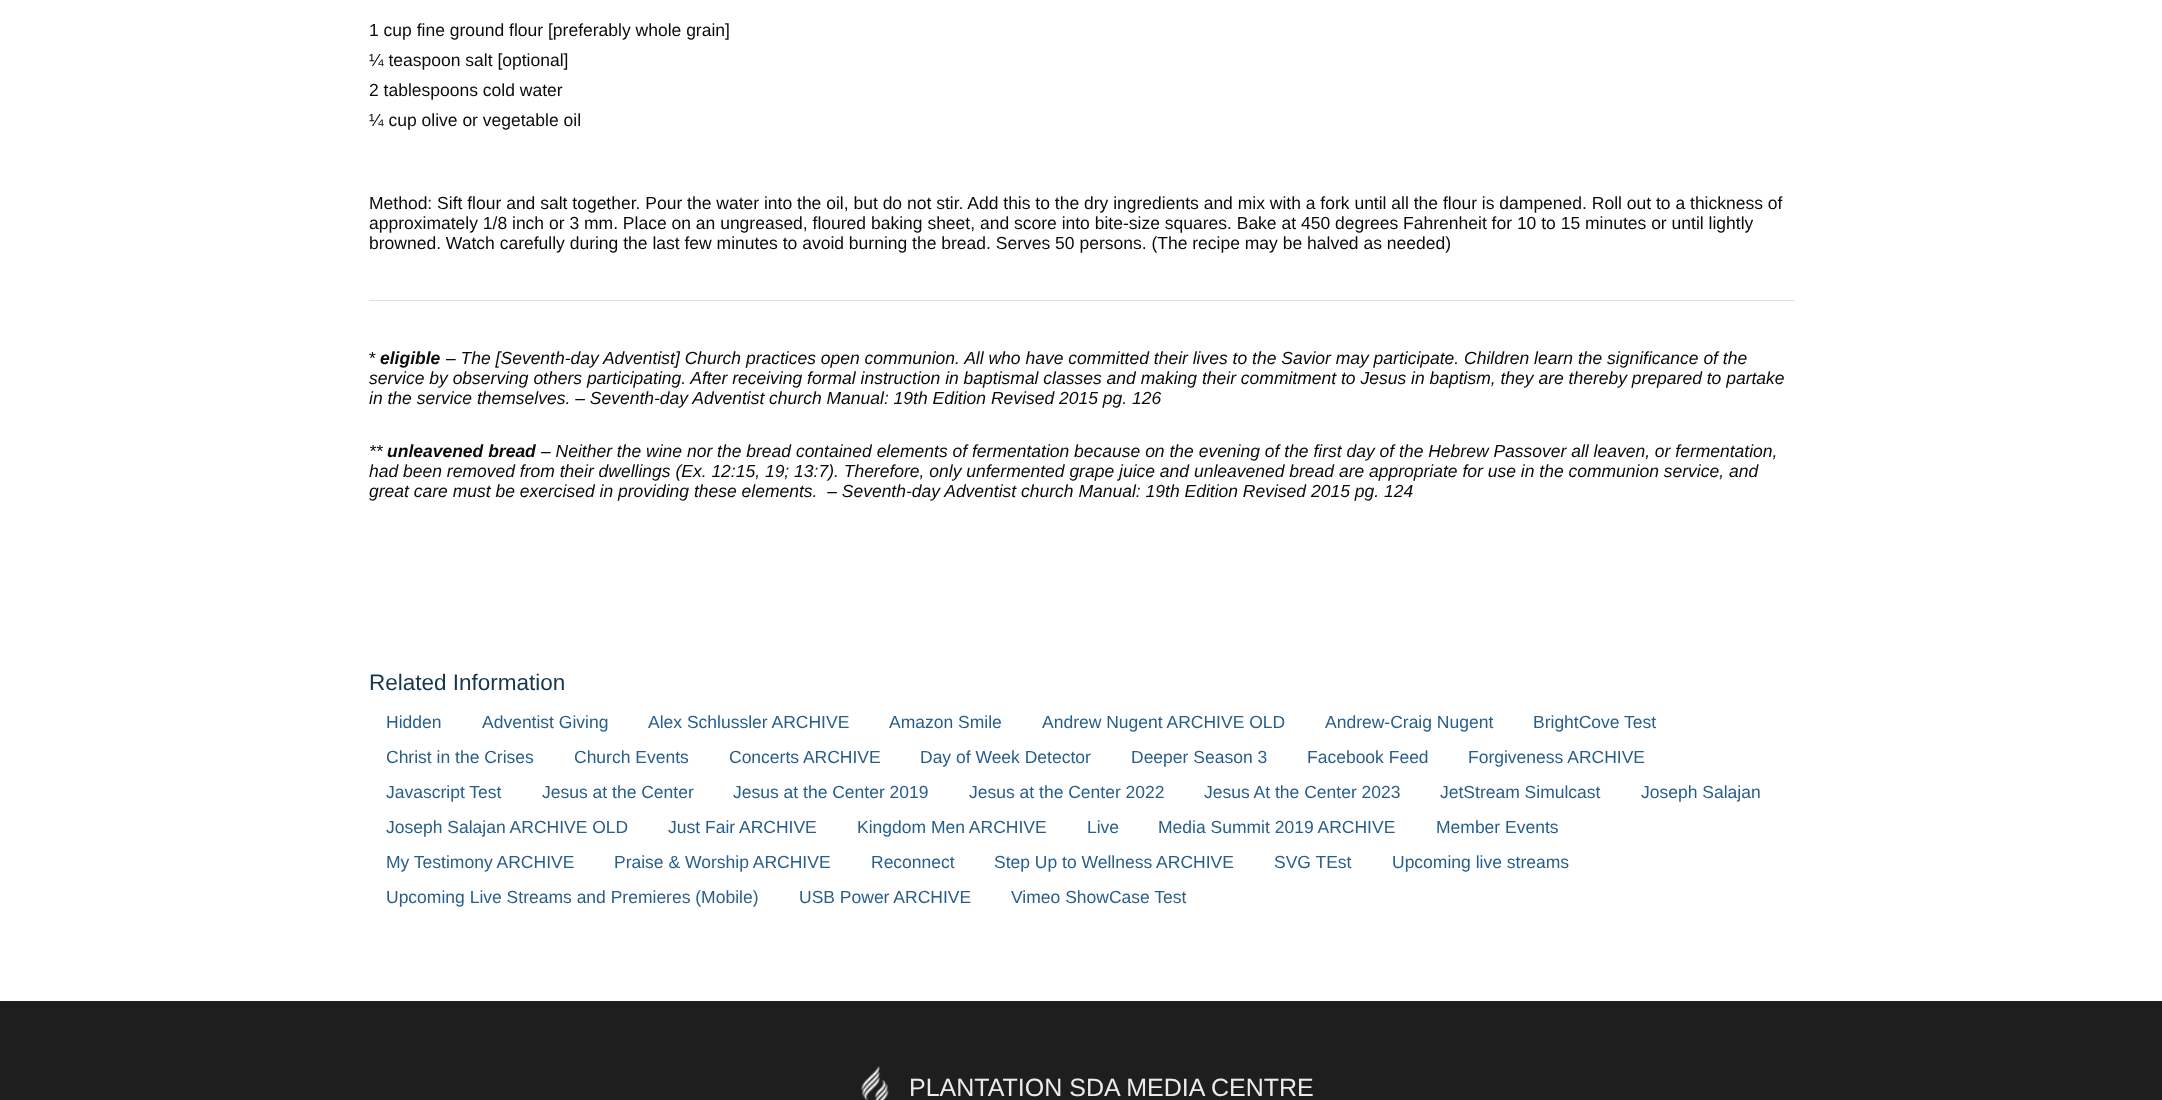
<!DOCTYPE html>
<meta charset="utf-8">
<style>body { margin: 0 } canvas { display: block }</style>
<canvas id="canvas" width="2162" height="1100"></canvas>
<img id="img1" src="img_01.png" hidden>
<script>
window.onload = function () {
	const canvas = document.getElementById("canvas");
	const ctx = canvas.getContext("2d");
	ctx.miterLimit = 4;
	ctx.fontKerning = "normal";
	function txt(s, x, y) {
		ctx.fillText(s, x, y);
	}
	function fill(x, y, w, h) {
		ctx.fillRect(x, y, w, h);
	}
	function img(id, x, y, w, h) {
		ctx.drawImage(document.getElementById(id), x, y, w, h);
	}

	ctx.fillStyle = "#FFFFFF";
	fill(0, 0, 2162, 1100);
	ctx.fillStyle = "#DDDDDD";
	fill(369, 300, 1425, 1);
	ctx.fillStyle = "#1E1E1E";
	fill(0, 1001, 2162, 99);
	img("img1", 861, 1066, 28, 34);
	ctx.font = "17.5px Liberation Sans";
	ctx.fillStyle = "#0A0A0A";
	txt("1 cup fine ground flour [preferably whole grain]", 369, 36);
	txt("¼ teaspoon salt [optional]", 369, 66);
	txt("2 tablespoons cold water", 369, 96);
	txt("¼ cup olive or vegetable oil", 369, 126);
	txt("Method: Sift flour and salt together. Pour the water into the oil, but do not stir. Add this to the dry ingredients and mix with a fork until all the flour is dampened. Roll out to a thickness of", 369, 209);
	txt("approximately 1/8 inch or 3 mm. Place on an ungreased, floured baking sheet, and score into bite-size squares. Bake at 450 degrees Fahrenheit for 10 to 15 minutes or until lightly", 369, 229);
	txt("browned. Watch carefully during the last few minutes to avoid burning the bread. Serves 50 persons. (The recipe may be halved as needed)", 369, 249);
	txt("*", 369, 364);
	ctx.font = "italic bold 17.5px Liberation Sans";
	txt("eligible", 380, 364);
	ctx.font = "italic 17.5px Liberation Sans";
	txt("– The [Seventh-day Adventist] Church practices open communion. All who have committed their lives to the Savior may participate. Children learn the significance of the", 446, 364);
	txt("service by observing others participating. After receiving formal instruction in baptismal classes and making their commitment to Jesus in baptism, they are thereby prepared to partake", 369, 384);
	txt("in the service themselves. – Seventh-day Adventist church Manual: 19th Edition Revised 2015 pg. 126", 369, 404);
	txt("**", 369, 457);
	ctx.font = "italic bold 17.5px Liberation Sans";
	txt("unleavened bread", 387, 457);
	ctx.font = "italic 17.5px Liberation Sans";
	txt("– Neither the wine nor the bread contained elements of fermentation because on the evening of the first day of the Hebrew Passover all leaven, or fermentation,", 541, 457);
	txt("had been removed from their dwellings (Ex. 12:15, 19; 13:7). Therefore, only unfermented grape juice and unleavened bread are appropriate for use in the communion service, and", 369, 477);
	txt("great care must be exercised in providing these elements.  – Seventh-day Adventist church Manual: 19th Edition Revised 2015 pg. 124", 369, 497);
	ctx.font = "22.5px Liberation Sans";
	ctx.fillStyle = "#163650";
	txt("Related Information", 369, 690);
	ctx.font = "17.5px Liberation Sans";
	ctx.fillStyle = "#275E8B";
	txt("Hidden", 386, 728);
	txt("Adventist Giving", 482, 728);
	txt("Alex Schlussler ARCHIVE", 648, 728);
	txt("Amazon Smile", 889, 728);
	txt("Andrew Nugent ARCHIVE OLD", 1042, 728);
	txt("Andrew-Craig Nugent", 1325, 728);
	txt("BrightCove Test", 1533, 728);
	txt("Christ in the Crises", 386, 763);
	txt("Church Events", 574, 763);
	txt("Concerts ARCHIVE", 729, 763);
	txt("Day of Week Detector", 920, 763);
	txt("Deeper Season 3", 1131, 763);
	txt("Facebook Feed", 1307, 763);
	txt("Forgiveness ARCHIVE", 1468, 763);
	txt("Javascript Test", 386, 798);
	txt("Jesus at the Center", 542, 798);
	txt("Jesus at the Center 2019", 733, 798);
	txt("Jesus at the Center 2022", 969, 798);
	txt("Jesus At the Center 2023", 1204, 798);
	txt("JetStream Simulcast", 1440, 798);
	txt("Joseph Salajan", 1641, 798);
	txt("Joseph Salajan ARCHIVE OLD", 386, 833);
	txt("Just Fair ARCHIVE", 668, 833);
	txt("Kingdom Men ARCHIVE", 857, 833);
	txt("Live", 1087, 833);
	txt("Media Summit 2019 ARCHIVE", 1158, 833);
	txt("Member Events", 1436, 833);
	txt("My Testimony ARCHIVE", 386, 868);
	txt("Praise & Worship ARCHIVE", 614, 868);
	txt("Reconnect", 871, 868);
	txt("Step Up to Wellness ARCHIVE", 994, 868);
	txt("SVG TEst", 1274, 868);
	txt("Upcoming live streams", 1392, 868);
	txt("Upcoming Live Streams and Premieres (Mobile)", 386, 903);
	txt("USB Power ARCHIVE", 799, 903);
	txt("Vimeo ShowCase Test", 1011, 903);
	ctx.font = "25px Liberation Sans";
	ctx.fillStyle = "#EBEBEB";
	txt("PLANTATION SDA MEDIA CENTRE", 909, 1096);
};
</script>
